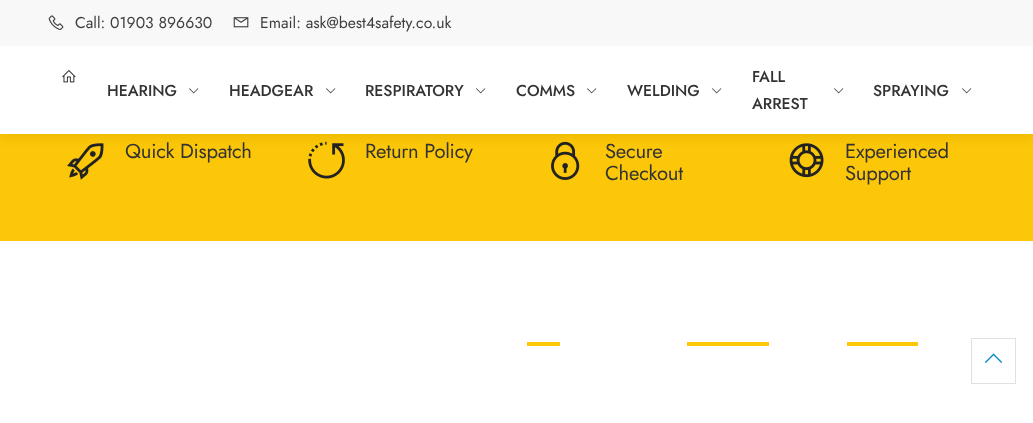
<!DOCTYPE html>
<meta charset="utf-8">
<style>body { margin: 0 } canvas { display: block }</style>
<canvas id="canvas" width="1033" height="423"></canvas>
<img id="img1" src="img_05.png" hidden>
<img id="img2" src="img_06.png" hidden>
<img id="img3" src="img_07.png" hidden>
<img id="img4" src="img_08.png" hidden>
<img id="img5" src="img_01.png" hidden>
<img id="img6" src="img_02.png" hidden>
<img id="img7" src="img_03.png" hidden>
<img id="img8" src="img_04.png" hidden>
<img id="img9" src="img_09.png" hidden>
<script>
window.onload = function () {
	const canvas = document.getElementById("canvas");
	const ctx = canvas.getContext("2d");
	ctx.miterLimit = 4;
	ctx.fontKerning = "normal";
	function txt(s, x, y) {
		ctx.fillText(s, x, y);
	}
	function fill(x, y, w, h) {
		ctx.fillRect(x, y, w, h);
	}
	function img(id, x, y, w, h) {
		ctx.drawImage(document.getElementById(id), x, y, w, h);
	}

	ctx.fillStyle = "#FFFFFF";
	fill(0, 0, 1033, 423);
	ctx.fillStyle = "#FCC708";
	fill(0, 134, 1033, 107);
	img("img1", 67, 143, 37, 37);
	img("img2", 308, 141, 37, 38);
	img("img3", 551, 141, 29, 39);
	img("img4", 789, 143, 35, 35);
	ctx.fillStyle = "rgba(0, 0, 0, 0.05)";
	ctx.filter = "blur(5px)";
	ctx.beginPath();
	ctx.rect(0, 5, 1033, 134);
	ctx.fill();
	ctx.filter = "none";
	ctx.fillStyle = "#F8F8F8";
	fill(0, 0, 1033, 46);
	img("img5", 48, 15, 16, 15);
	img("img6", 233, 17, 16, 11);
	ctx.fillStyle = "#FFFFFF";
	fill(0, 46, 1033, 88);
	img("img7", 62, 70, 14, 13);
	img("img8", 189, 88, 10, 6);
	img("img8", 326, 88, 10, 6);
	img("img8", 476, 88, 10, 6);
	img("img8", 587, 88, 10, 6);
	img("img8", 712, 88, 10, 6);
	img("img8", 834, 88, 10, 6);
	img("img8", 962, 88, 10, 6);
	ctx.fillStyle = "#FCC708";
	fill(527, 342, 33, 4);
	fill(687, 342, 82, 4);
	fill(847, 342, 71, 4);
	ctx.strokeStyle = "#DEE2E6";
	ctx.strokeRect(971.5, 338.5, 44, 45);
	img("img9", 984, 353, 19, 10);
	ctx.font = "15.75px Jost";
	ctx.fillStyle = "#3E3E3E";
	txt("Call: 01903 896630", 75, 28);
	txt("Email: ask@best4safety.co.uk", 260, 28);
	ctx.font = "500 15.75px Jost";
	ctx.fillStyle = "#333333";
	txt("HEARING", 107, 96);
	txt("HEADGEAR", 229, 96);
	txt("RESPIRATORY", 365, 96);
	txt("COMMS", 516, 96);
	txt("WELDING", 627, 96);
	txt("FALL", 752, 82);
	txt("ARREST", 752, 109);
	txt("SPRAYING", 873, 96);
	ctx.letterSpacing = "-0.25px";
	ctx.font = "20.25px Jost";
	txt("Quick Dispatch", 125, 158);
	txt("Return Policy", 365, 158);
	txt("Secure", 605, 158);
	txt("Checkout", 605, 180);
	txt("Experienced", 845, 158);
	txt("Support", 845, 180);
};
</script>
